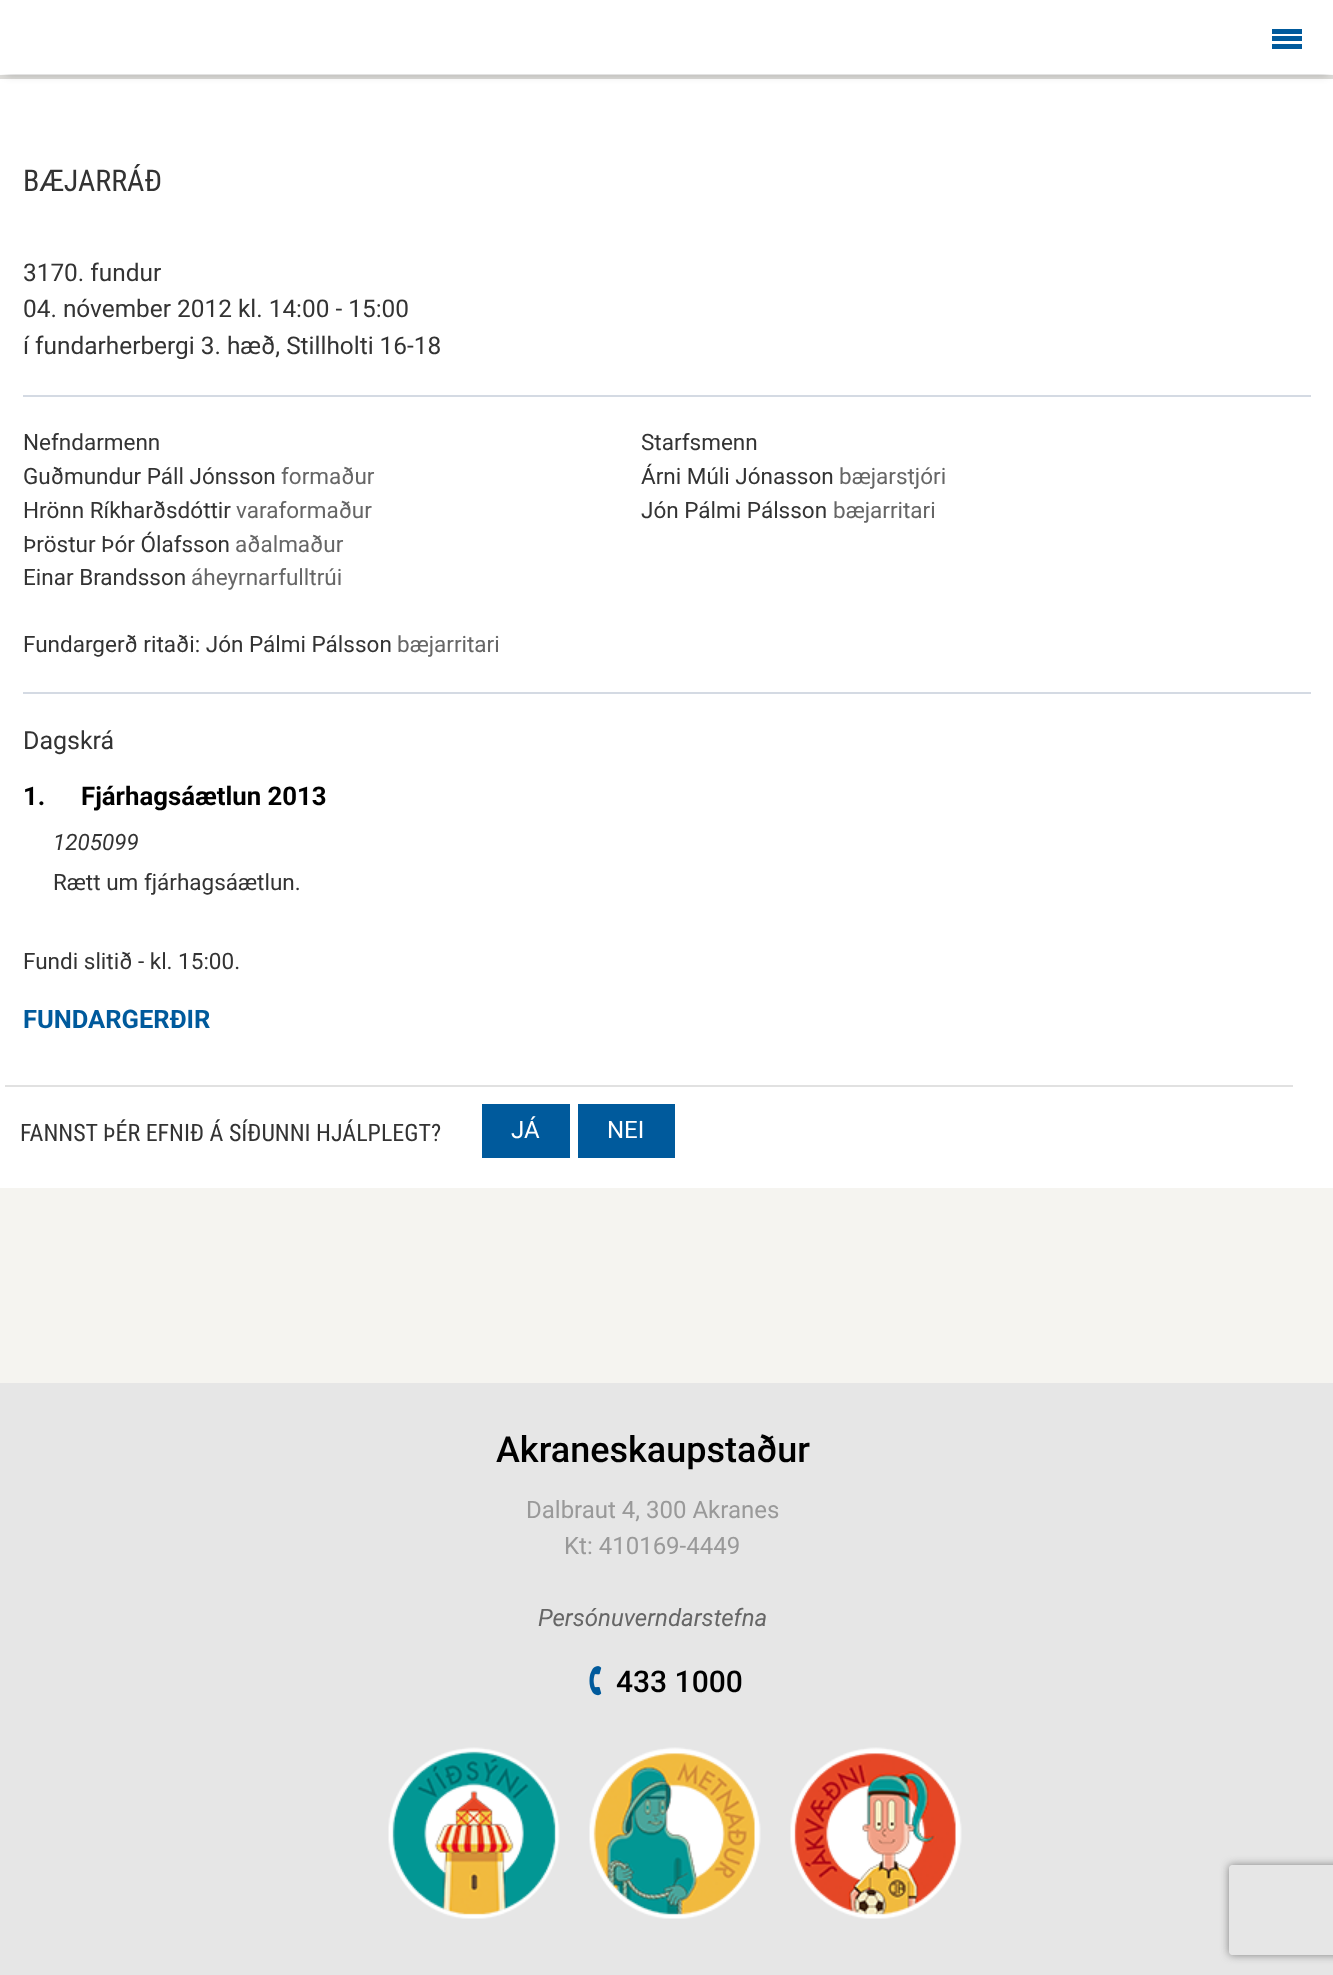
<svg xmlns="http://www.w3.org/2000/svg" width="1333" height="1975" viewBox="0 0 1333 1975">
  <style>
    .t1 { font: 30px Roboto Condensed; fill: #333; }
    .t2 { font: 24.4px Roboto; fill: #333; }
    .t3 { font: 22.5px Roboto; fill: #333; }
    .t4 { font: 22.5px Roboto; fill: #666; }
    .t5 { font: 25px Roboto; fill: #333; }
    .t6 { font: bold 25.75px Roboto; fill: #000; }
    .t7 { font: italic 22.5px Roboto; fill: #333; }
    .t8 { font: bold 25.5px Roboto; fill: #005a9c; }
    .t9 { font: 24px Roboto Condensed; fill: #333; }
    .t10 { font: 24px Roboto; fill: #fff; }
    .t11 { font: 500 36px Roboto; fill: #000; }
    .t12 { font: 24px Roboto; fill: #999; }
    .t13 { font: italic 24px Roboto; fill: #666; }
    .t14 { font: 500 30px Roboto; fill: #000; }
  </style>
  <defs>
    <clipPath id="clip1"><path d="M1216 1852H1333V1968H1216ZM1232 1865H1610C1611.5 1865 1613 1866.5 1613 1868V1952C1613 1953.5 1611.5 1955 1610 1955H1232C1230.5 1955 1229 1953.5 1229 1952V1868C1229 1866.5 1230.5 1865 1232 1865Z" clip-rule="evenodd"/></clipPath>
  </defs>
  <rect width="100%" height="100%" fill="#f5f4f0"/>
  <rect x="0" y="74" width="1333" height="1" fill="#fff"/>
  <rect x="0" y="75" width="1333" height="4" fill="#dcdbd8"/>
  <rect x="0" y="79" width="1333" height="1109" fill="#fff"/>
  <rect x="6" y="14" width="1322" height="61" fill="#00000033" filter="blur(4px)"/>
  <rect x="0" y="0" width="1333" height="74" fill="#fff"/>
  <rect x="1272" y="29" width="30" height="5" fill="#005a9c"/>
  <rect x="1272" y="36" width="30" height="5" fill="#005a9c"/>
  <rect x="1272" y="44" width="30" height="5" fill="#005a9c"/>
  <text x="23" y="191" class="t1">BÆJARRÁÐ</text>
  <text x="23" y="281" class="t2">3170. fundur</text>
  <text x="23" y="317" class="t2">04. nóvember 2012 kl. 14:00 - 15:00</text>
  <rect x="23" y="395" width="1288" height="2" fill="#d4dae3"/>
  <text x="23" y="354" class="t2">í fundarherbergi 3. hæð, Stillholti 16-18</text>
  <rect x="23" y="692" width="1288" height="2" fill="#d4dae3"/>
  <text x="23" y="450" class="t3">Nefndarmenn</text>
  <text x="23" y="484" class="t3">Guðmundur Páll Jónsson</text>
  <text x="281" y="484" class="t4">formaður</text>
  <text x="23" y="518" class="t3">Hrönn Ríkharðsdóttir</text>
  <text x="236" y="518" class="t4">varaformaður</text>
  <text x="23" y="552" class="t3">Þröstur Þór Ólafsson</text>
  <text x="235" y="552" class="t4">aðalmaður</text>
  <text x="23" y="585" class="t3">Einar Brandsson</text>
  <text x="191" y="585" class="t4">áheyrnarfulltrúi</text>
  <text x="641" y="450" class="t3">Starfsmenn</text>
  <text x="641" y="484" class="t3">Árni Múli Jónasson</text>
  <text x="839" y="484" class="t4">bæjarstjóri</text>
  <text x="641" y="518" class="t3">Jón Pálmi Pálsson</text>
  <text x="833" y="518" class="t4">bæjarritari</text>
  <text x="23" y="652" class="t3">Fundargerð ritaði: Jón Pálmi Pálsson</text>
  <text x="397" y="652" class="t4">bæjarritari</text>
  <text x="23" y="749" class="t5">Dagskrá</text>
  <text x="23" y="805" class="t6">1.</text>
  <text x="81" y="805" class="t6">Fjárhagsáætlun 2013</text>
  <text x="53" y="850" class="t7">1205099</text>
  <text x="53" y="890" class="t3">Rætt um fjárhagsáætlun.</text>
  <text x="23" y="969" class="t3">Fundi slitið - kl. 15:00.</text>
  <text x="23" y="1028" class="t8">FUNDARGERÐIR</text>
  <rect x="5" y="1085" width="1288" height="2" fill="#e1e1e1"/>
  <text x="20" y="1141" class="t9">FANNST ÞÉR EFNIÐ Á SÍÐUNNI HJÁLPLEGT?</text>
  <rect x="482" y="1104" width="88" height="54" fill="#005a9c"/>
  <text x="511" y="1138" class="t10">JÁ</text>
  <rect x="578" y="1104" width="97" height="54" fill="#005a9c"/>
  <text x="607" y="1138" class="t10">NEI</text>
  <rect x="0" y="1383" width="1333" height="592" fill="#e6e6e6"/>
  <text x="496" y="1462" class="t11">Akraneskaupstaður</text>
  <text x="526" y="1518" class="t12">Dalbraut 4, 300 Akranes</text>
  <text x="564" y="1554" class="t12">Kt: 410169-4449</text>
  <text x="538" y="1626" class="t13">Persónuverndarstefna</text>
  <image x="589" y="1666" width="13" height="30" href="images/1.png"/>
  <text x="616" y="1692" class="t14">433 1000</text>
  <image x="388" y="1747" width="172" height="172" href="images/2.png"/>
  <image x="589" y="1747" width="172" height="172" href="images/3.png"/>
  <image x="790" y="1747" width="172" height="172" href="images/4.png"/>
  <g clip-path="url(#clip1)">
    <rect x="1229" y="1865" width="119" height="90" rx="3" fill="#808080" filter="blur(4px)"/>
  </g>
</svg>
